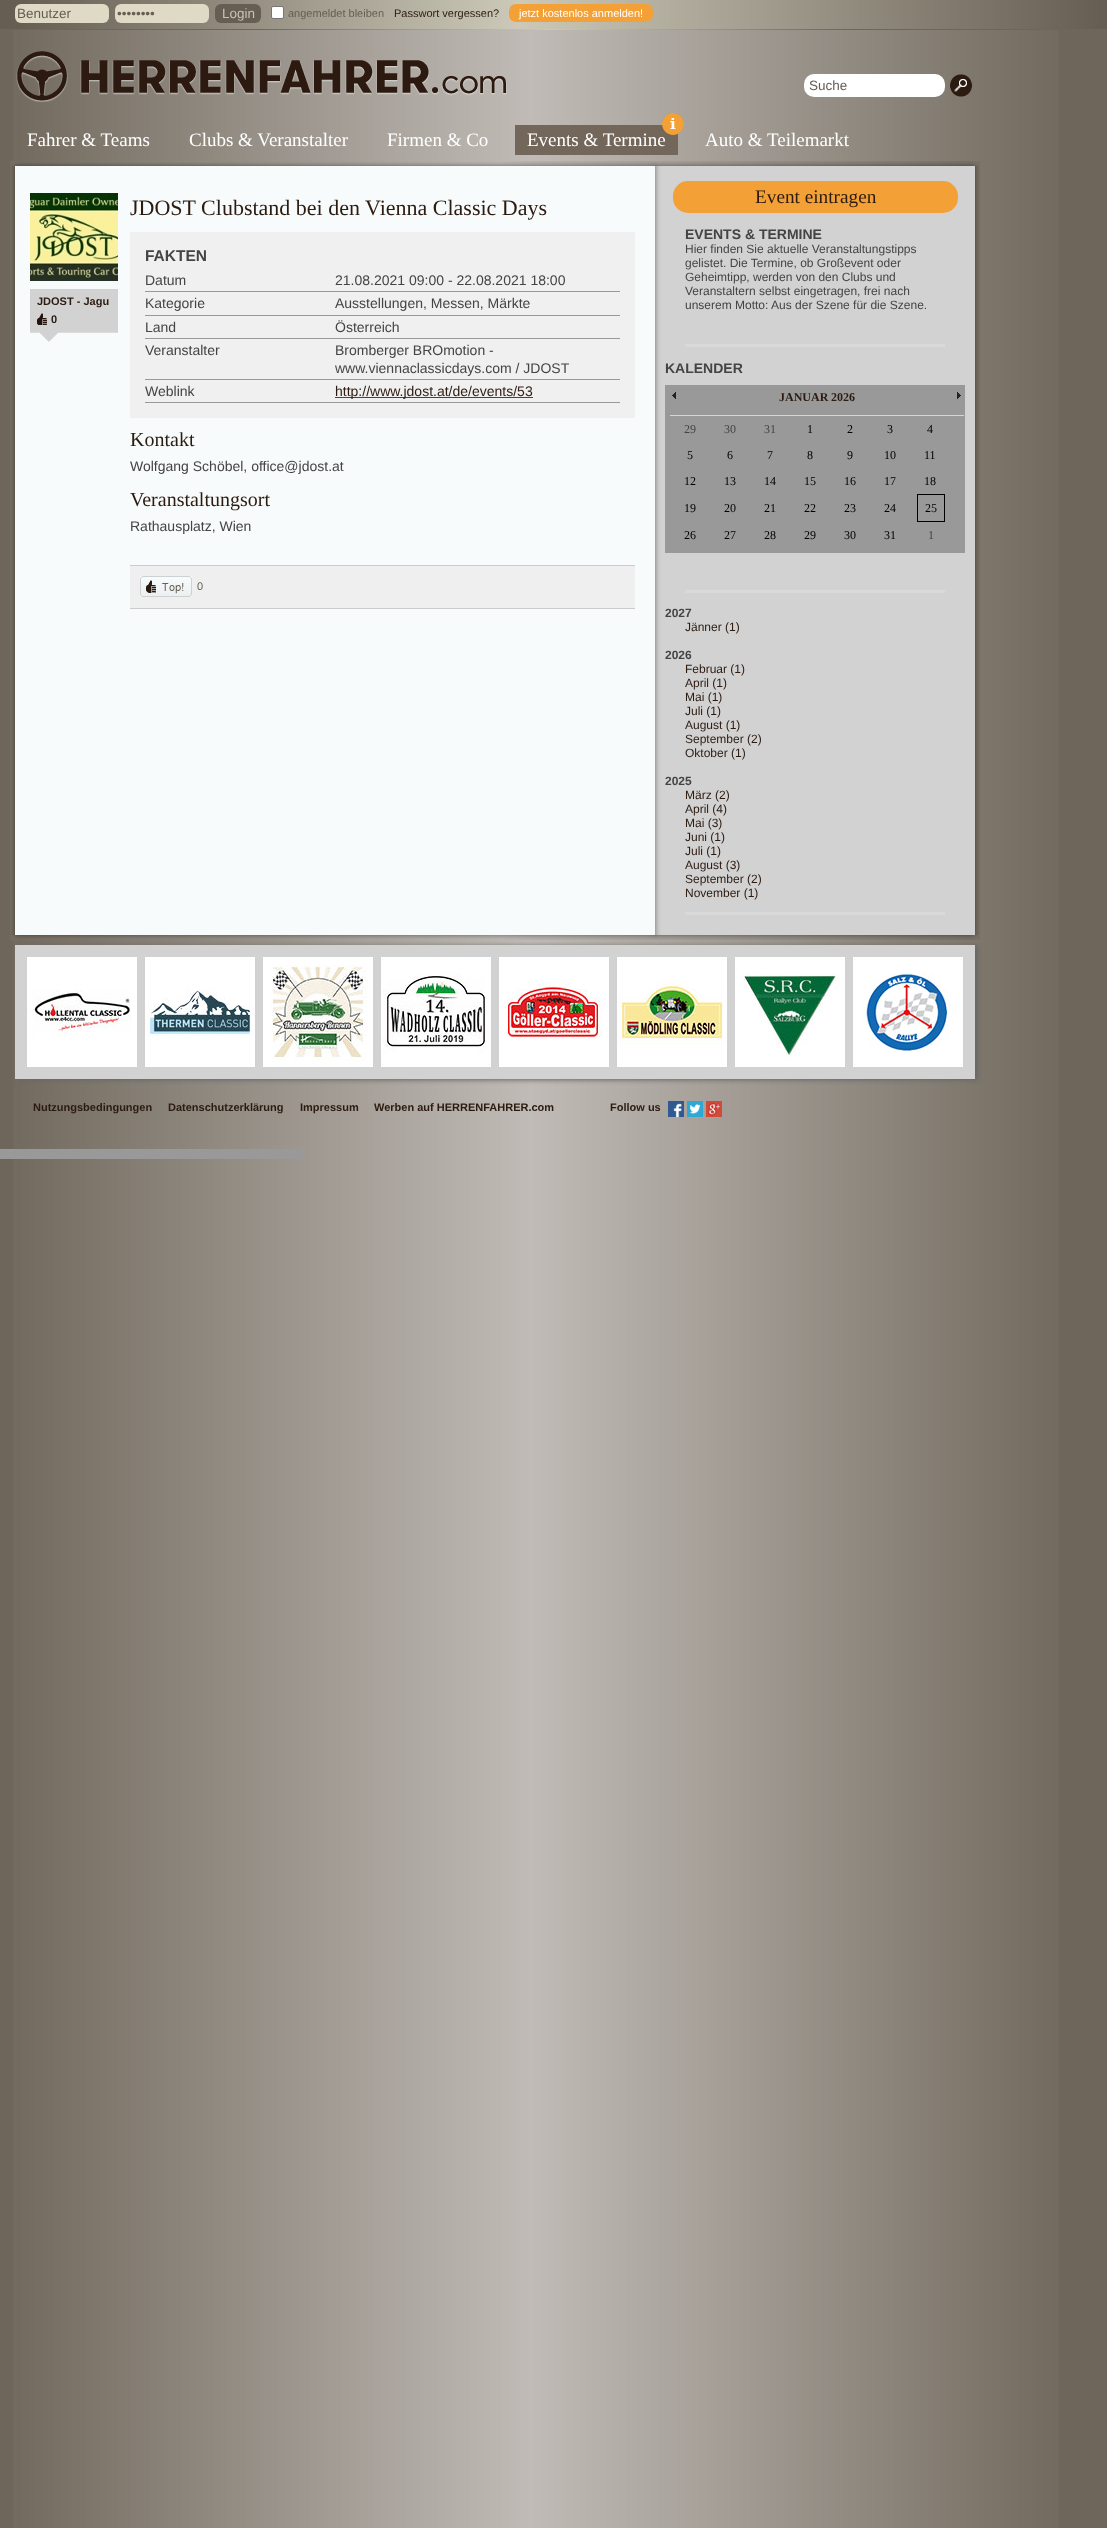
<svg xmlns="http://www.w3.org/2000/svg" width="1107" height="2528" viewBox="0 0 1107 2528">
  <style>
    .t1 { font: 13.5px Liberation Sans; fill: #665e53; }
    .t2 { font: 13.5px Liberation Sans; fill: #c6c2b2; }
    .t3 { font: 11px Liberation Sans; fill: #665e53; }
    .t4 { font: 11px Liberation Sans; fill: #2c1b11; }
    .t5 { font: 11px Liberation Sans; fill: #fff; }
    .t6 { font: 19px Liberation Serif; fill: #fff; }
    .t7 { font: bold 11px Liberation Sans; fill: #2c1b11; }
    .t8 { font: 22px Liberation Serif; fill: #2c1b11; }
    .t9 { font: bold 15.5px Liberation Sans; fill: #444; }
    .t10 { font: 14px Liberation Sans; fill: #444; }
    .t11 { font: 14px Liberation Sans; fill: #2c1b11; }
    .t12 { font: 20px Liberation Serif; fill: #2c1b11; }
    .t13 { font: 19.25px Liberation Serif; fill: #2c1b11; }
    .t14 { font: bold 14px Liberation Sans; fill: #444; }
    .t15 { font: 12px Liberation Sans; fill: #444; }
    .t16 { font: bold 12px Liberation Serif; fill: #2c1b11; }
    .t17 { font: 12px Liberation Serif; fill: #444; }
    .t18 { font: 12px Liberation Serif; fill: #000; }
    .t19 { font: bold 12px Liberation Sans; fill: #444; }
    .t20 { font: 12px Liberation Sans; fill: #2c1b11; }
  </style>
  <rect width="100%" height="100%" fill="#6e665a"/>
  <image x="13" y="30" width="1046" height="2498" href="images/1.png"/>
  <image x="0" y="0" width="1107" height="30" href="images/2.png"/>
  <rect x="15" y="4" width="94" height="19" rx="6" fill="#dedac6"/>
  <text x="17" y="18" class="t1">Benutzer</text>
  <rect x="115" y="4" width="94" height="19" rx="6" fill="#dedac6"/>
  <text x="117" y="18" class="t1">••••••••</text>
  <rect x="215" y="4" width="46" height="19" rx="6" fill="#665e53"/>
  <text x="222" y="18" class="t2">Login</text>
  <rect x="271.5" y="6.5" width="12" height="12" rx="1.5" fill="#fff" stroke="#767676"/>
  <text x="288" y="17" class="t3">angemeldet bleiben</text>
  <text x="394" y="17" class="t4">Passwort vergessen?</text>
  <rect x="509" y="4" width="144" height="18" rx="7" fill="#f3a036"/>
  <text x="519" y="17" class="t5">jetzt kostenlos anmelden!</text>
  <image x="16" y="51" width="491" height="51" href="images/3.png"/>
  <rect x="804" y="74" width="141" height="23" rx="10" fill="#fff"/>
  <text x="809" y="90" class="t1">Suche</text>
  <image x="950" y="74" width="22" height="23" href="images/4.png"/>
  <text x="27" y="146" class="t6">Fahrer &amp; Teams</text>
  <text x="189" y="146" class="t6">Clubs &amp; Veranstalter</text>
  <text x="387" y="146" class="t6">Firmen &amp; Co</text>
  <rect x="515" y="125" width="163" height="30" fill="#73665a"/>
  <text x="527" y="146" class="t6">Events &amp; Termine</text>
  <image x="662" y="113" width="22" height="22" href="images/5.png"/>
  <text x="705" y="146" class="t6">Auto &amp; Teilemarkt</text>
  <image x="10" y="161" width="970" height="779" href="images/6.png"/>
  <image x="11" y="161" width="968" height="5" href="images/7.png"/>
  <image x="30" y="193" width="88" height="88" href="images/8.png"/>
  <rect x="30" y="289" width="88" height="43" fill="#d2d2d2"/>
  <image x="30" y="332" width="88" height="10" href="images/9.png"/>
  <text x="37" y="305" class="t7">JDOST - Jagu</text>
  <image x="37" y="313" width="10" height="12" href="images/10.png"/>
  <text x="51" y="323" class="t7">0</text>
  <text x="130" y="215" class="t8">JDOST Clubstand bei den Vienna Classic Days</text>
  <rect x="130" y="232" width="505" height="186" fill="#f0f0f0"/>
  <text x="145" y="261" class="t9">FAKTEN</text>
  <rect x="145" y="291" width="475" height="1" fill="#999"/>
  <text x="145" y="285" class="t10">Datum</text>
  <text x="335" y="285" class="t10">21.08.2021 09:00 - 22.08.2021 18:00</text>
  <rect x="145" y="315" width="475" height="1" fill="#999"/>
  <text x="145" y="308" class="t10">Kategorie</text>
  <text x="335" y="308" class="t10">Ausstellungen, Messen, Märkte</text>
  <rect x="145" y="338" width="475" height="1" fill="#999"/>
  <text x="145" y="332" class="t10">Land</text>
  <text x="335" y="332" class="t10">Österreich</text>
  <rect x="145" y="379" width="475" height="1" fill="#999"/>
  <text x="145" y="355" class="t10">Veranstalter</text>
  <text x="335" y="355" class="t10">Bromberger BROmotion -</text>
  <text x="335" y="373" class="t10">www.viennaclassicdays.com / JDOST</text>
  <rect x="145" y="402" width="475" height="1" fill="#999"/>
  <text x="145" y="396" class="t10">Weblink</text>
  <rect x="335" y="397" width="198" height="1" fill="#444"/>
  <text x="335" y="396" class="t11">http://www.jdost.at/de/events/53</text>
  <text x="130" y="446" class="t12">Kontakt</text>
  <text x="130" y="471" class="t10">Wolfgang Schöbel, office@jdost.at</text>
  <text x="130" y="506" class="t12">Veranstaltungsort</text>
  <text x="130" y="531" class="t10">Rathausplatz, Wien</text>
  <rect x="130" y="566" width="505" height="42" fill="#efefef"/>
  <rect x="130" y="565" width="505" height="1" fill="#ccc"/>
  <rect x="130" y="608" width="505" height="1" fill="#ccc"/>
  <image x="140" y="576" width="52" height="21" href="images/11.png"/>
  <text x="197" y="590" class="t3">0</text>
  <rect x="673" y="181" width="285" height="32" rx="15" fill="#f3a036"/>
  <text x="755" y="203" class="t13">Event eintragen</text>
  <rect x="685" y="344" width="260" height="3" fill="#d9d9d9"/>
  <text x="685" y="239" class="t14">EVENTS &amp; TERMINE</text>
  <text x="685" y="253" class="t15">Hier finden Sie aktuelle Veranstaltungstipps</text>
  <text x="685" y="267" class="t15">gelistet. Die Termine, ob Großevent oder</text>
  <text x="685" y="281" class="t15">Geheimtipp, werden von den Clubs und</text>
  <text x="685" y="295" class="t15">Veranstaltern selbst eingetragen, frei nach</text>
  <text x="685" y="309" class="t15">unserem Motto: Aus der Szene für die Szene.</text>
  <rect x="685" y="590" width="260" height="3" fill="#d9d9d9"/>
  <text x="665" y="373" class="t14">KALENDER</text>
  <rect x="665" y="385" width="300" height="168" fill="#999"/>
  <rect x="670" y="415" width="294" height="1" fill="#d6d6d6"/>
  <image x="672" y="392" width="4" height="7" href="images/12.png"/>
  <text x="779" y="401" class="t16">JANUAR</text>
  <text x="831" y="401" class="t16">2026</text>
  <image x="957" y="392" width="4" height="7" href="images/13.png"/>
  <text x="684" y="433" class="t17">29</text>
  <text x="724" y="433" class="t17">30</text>
  <text x="764" y="433" class="t17">31</text>
  <text x="807" y="433" class="t18">1</text>
  <text x="847" y="433" class="t18">2</text>
  <text x="887" y="433" class="t18">3</text>
  <text x="927" y="433" class="t18">4</text>
  <text x="687" y="459" class="t18">5</text>
  <text x="727" y="459" class="t18">6</text>
  <text x="767" y="459" class="t18">7</text>
  <text x="807" y="459" class="t18">8</text>
  <text x="847" y="459" class="t18">9</text>
  <text x="884" y="459" class="t18">10</text>
  <text x="924" y="459" class="t18">11</text>
  <text x="684" y="485" class="t18">12</text>
  <text x="724" y="485" class="t18">13</text>
  <text x="764" y="485" class="t18">14</text>
  <text x="804" y="485" class="t18">15</text>
  <text x="844" y="485" class="t18">16</text>
  <text x="884" y="485" class="t18">17</text>
  <text x="924" y="485" class="t18">18</text>
  <text x="684" y="512" class="t18">19</text>
  <text x="724" y="512" class="t18">20</text>
  <text x="764" y="512" class="t18">21</text>
  <text x="804" y="512" class="t18">22</text>
  <text x="844" y="512" class="t18">23</text>
  <text x="884" y="512" class="t18">24</text>
  <rect x="917.5" y="494.5" width="27" height="27" fill="none" stroke="#000"/>
  <text x="925" y="512" class="t18">25</text>
  <text x="684" y="539" class="t18">26</text>
  <text x="724" y="539" class="t18">27</text>
  <text x="764" y="539" class="t18">28</text>
  <text x="804" y="539" class="t18">29</text>
  <text x="844" y="539" class="t18">30</text>
  <text x="884" y="539" class="t18">31</text>
  <text x="928" y="539" class="t17">1</text>
  <rect x="685" y="912" width="260" height="3" fill="#d9d9d9"/>
  <text x="665" y="617" class="t19">2027</text>
  <text x="685" y="631" class="t20">Jänner (1)</text>
  <text x="665" y="659" class="t19">2026</text>
  <text x="685" y="673" class="t20">Februar (1)</text>
  <text x="685" y="687" class="t20">April (1)</text>
  <text x="685" y="701" class="t20">Mai (1)</text>
  <text x="685" y="715" class="t20">Juli (1)</text>
  <text x="685" y="729" class="t20">August (1)</text>
  <text x="685" y="743" class="t20">September (2)</text>
  <text x="685" y="757" class="t20">Oktober (1)</text>
  <text x="665" y="785" class="t19">2025</text>
  <text x="685" y="799" class="t20">März (2)</text>
  <text x="685" y="813" class="t20">April (4)</text>
  <text x="685" y="827" class="t20">Mai (3)</text>
  <text x="685" y="841" class="t20">Juni (1)</text>
  <text x="685" y="855" class="t20">Juli (1)</text>
  <text x="685" y="869" class="t20">August (3)</text>
  <text x="685" y="883" class="t20">September (2)</text>
  <text x="685" y="897" class="t20">November (1)</text>
  <image x="11" y="935" width="968" height="5" href="images/14.png"/>
  <rect x="18" y="946" width="960" height="134" fill="#666" filter="blur(2.5px)"/>
  <rect x="15" y="945" width="960" height="134" fill="#d2d2d2"/>
  <rect x="27" y="957" width="110" height="110" fill="#fff"/>
  <image x="27" y="990" width="104" height="47" href="images/15.png"/>
  <rect x="145" y="957" width="110" height="110" fill="#fff"/>
  <image x="145" y="989" width="110" height="48" href="images/16.png"/>
  <rect x="263" y="957" width="110" height="110" fill="#fff"/>
  <image x="271" y="965" width="96" height="96" href="images/17.png"/>
  <rect x="381" y="957" width="110" height="110" fill="#fff"/>
  <image x="382" y="973" width="103" height="80" href="images/18.png"/>
  <rect x="499" y="957" width="110" height="110" fill="#fff"/>
  <image x="507" y="981" width="96" height="56" href="images/19.png"/>
  <rect x="617" y="957" width="110" height="110" fill="#fff"/>
  <image x="617" y="981" width="110" height="64" href="images/20.png"/>
  <rect x="735" y="957" width="110" height="110" fill="#fff"/>
  <image x="743" y="973" width="96" height="88" href="images/21.png"/>
  <rect x="853" y="957" width="110" height="110" fill="#fff"/>
  <image x="862" y="973" width="87" height="80" href="images/22.png"/>
  <text x="33" y="1111" class="t7">Nutzungsbedingungen</text>
  <text x="168" y="1111" class="t7">Datenschutzerklärung</text>
  <text x="300" y="1111" class="t7">Impressum</text>
  <text x="374" y="1111" class="t7">Werben auf HERRENFAHRER.com</text>
  <text x="610" y="1111" class="t7">Follow us</text>
  <image x="668" y="1101" width="16" height="16" href="images/23.png"/>
  <image x="687" y="1101" width="16" height="16" href="images/24.png"/>
  <image x="706" y="1101" width="16" height="16" href="images/25.png"/>
  <rect x="0" y="1149" width="304" height="10" fill="#999"/>
</svg>
